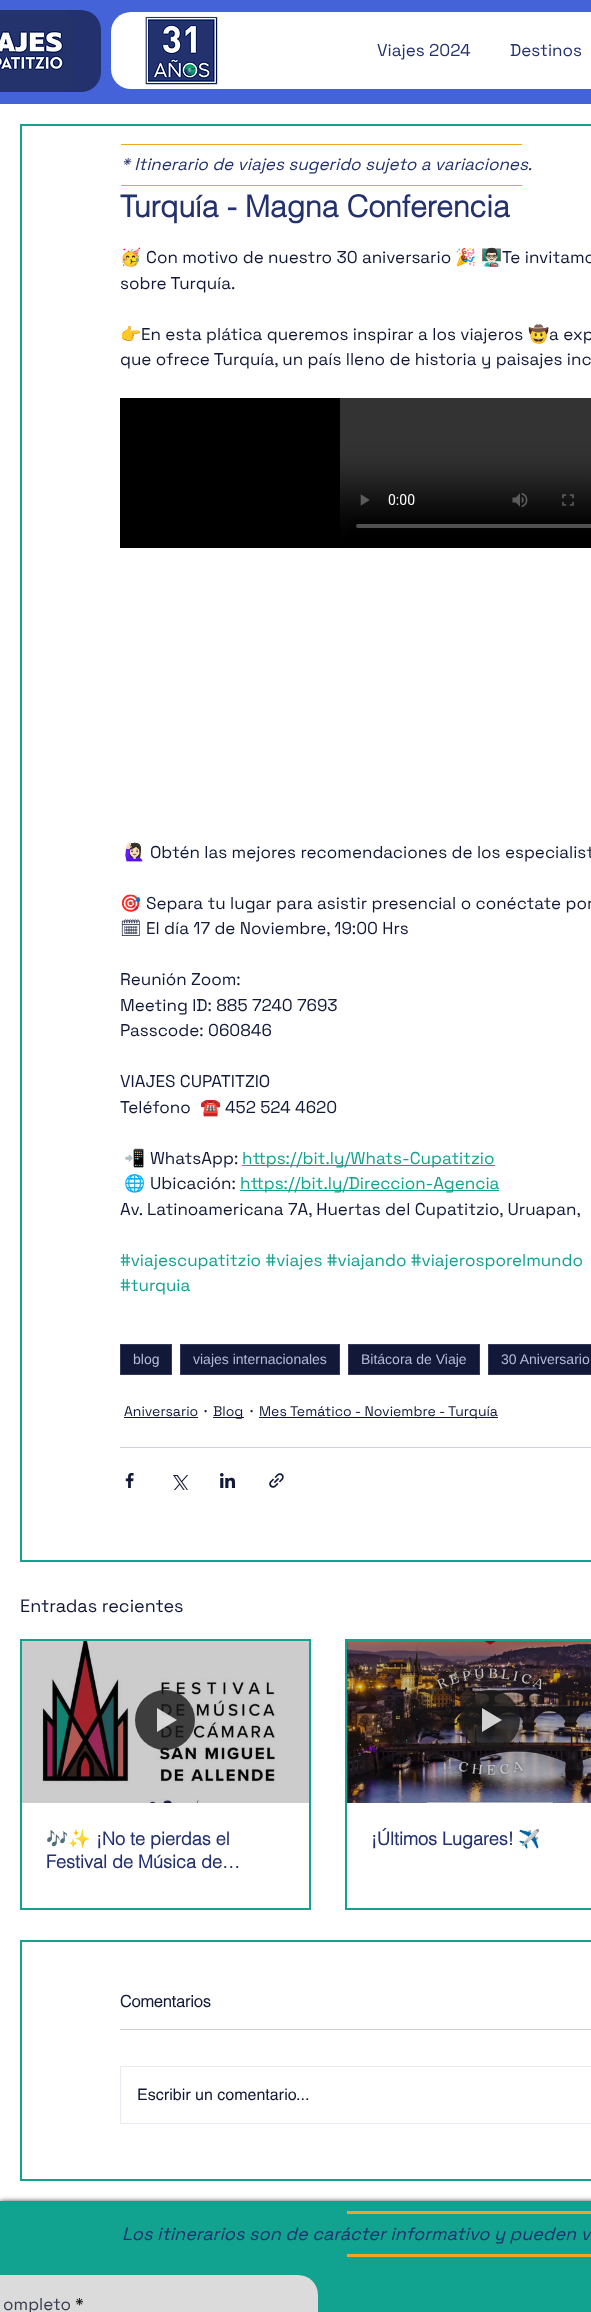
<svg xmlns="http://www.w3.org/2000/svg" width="591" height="2312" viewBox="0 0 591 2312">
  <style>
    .t1 { font: 17px Space Grotesk; fill: #23316e; }
    .t2 { font: italic 17px Space Grotesk; fill: #23316e; }
    .t3 { font: bold 30px helvetica; fill: #23316e; }
    .t4 { font: 17px Noto Color Emoji; fill: #121837; }
    .t5 { font: 17px Space Grotesk; fill: #121837; }
    .t6 { font: 17px Noto Emoji; fill: #121837; }
    .t7 { font: 17px Space Grotesk; fill: #12a390; }
    .t8 { font: 14px Liberation Sans; fill: #b5bcdb; }
    .t9 { font: 14px Space Grotesk; fill: #121837; }
    .t10 { font: 18px Space Grotesk; fill: #121837; }
    .t11 { font: bold 18px Noto Color Emoji; fill: #23316e; }
    .t12 { font: bold 18px helvetica; fill: #23316e; }
    .t13 { font: bold 16px helvetica; fill: #121837; }
    .t14 { font: 16px helvetica; fill: #121837; }
    .t15 { font: italic 18px Space Grotesk; fill: #23316e; }
    .t16 { font: 17px Space Grotesk; fill: #373b4d; }
    .t17 { font: 17px Space Grotesk; fill: #000; }
  </style>
  <rect width="100%" height="100%" fill="#fff"/>
  <rect x="22" y="1641" width="287" height="162" fill="#ccc"/>
  <rect x="0" y="0" width="591" height="104" fill="#4563d9"/>
  <rect x="-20" y="10" width="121" height="82" rx="20" fill="#23316e"/>
  <image x="0" y="10" width="75" height="82" href="images/1.png"/>
  <rect x="111" y="12" width="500" height="77" rx="20" fill="#fff"/>
  <image x="145" y="16" width="73" height="69" href="images/2.png"/>
  <text x="377" y="56" class="t1">Viajes 2024</text>
  <text x="510" y="56" class="t1">Destinos</text>
  <rect x="21" y="125" width="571" height="1436" fill="none" stroke="#12a390" stroke-width="2"/>
  <rect x="121" y="144" width="401" height="1" fill="#f3a522"/>
  <text x="121" y="170" class="t2">* Itinerario de viajes sugerido sujeto a variaciones.</text>
  <rect x="121" y="185" width="401" height="1" fill="#f3a522"/>
  <text x="120" y="217" class="t3">Turquía - Magna Conferencia</text>
  <text x="120" y="263" class="t4">🥳</text>
  <text x="146" y="263" class="t5">Con motivo de nuestro 30 aniversario</text>
  <text x="455" y="263" class="t4">🎉</text>
  <text x="481" y="263" class="t4">👨🏻‍🏫</text>
  <text x="502" y="263" class="t5">Te invitamo</text>
  <text x="120" y="289" class="t5">sobre Turquía.</text>
  <text x="120" y="340" class="t4">👉</text>
  <text x="141" y="340" class="t5">En esta plática queremos inspirar a los viajeros</text>
  <text x="528" y="340" class="t4">🤠</text>
  <text x="549" y="340" class="t5">a exp</text>
  <text x="120" y="365" class="t5">que ofrece Turquía, un país lleno de historia y paisajes inc</text>
  <image x="120" y="398" width="471" height="150" href="images/3.png"/>
  <text x="124" y="858" class="t4">🙋🏻‍♀️</text>
  <text x="150" y="858" class="t5">Obtén las mejores recomendaciones de los especialist</text>
  <text x="120" y="909" class="t4">🎯</text>
  <text x="146" y="909" class="t5">Separa tu lugar para asistir presencial o conéctate por</text>
  <text x="120" y="934" class="t6">🗓</text>
  <text x="146" y="934" class="t5">El día 17 de Noviembre, 19:00 Hrs</text>
  <text x="120" y="985" class="t5">Reunión Zoom:</text>
  <text x="120" y="1011" class="t5">Meeting ID: 885 7240 7693</text>
  <text x="120" y="1036" class="t5">Passcode: 060846</text>
  <text x="120" y="1087" class="t5">VIAJES CUPATITZIO</text>
  <text x="120" y="1113" class="t5">Teléfono</text>
  <text x="200" y="1113" class="t4">☎️</text>
  <text x="225" y="1113" class="t5">452 524 4620</text>
  <text x="124" y="1164" class="t4">📲</text>
  <text x="150" y="1164" class="t5">WhatsApp:</text>
  <rect x="242" y="1165" width="253" height="1" fill="#12a390"/>
  <text x="242" y="1164" class="t7">https://bit.ly/Whats-Cupatitzio</text>
  <text x="124" y="1189" class="t4">🌐</text>
  <text x="150" y="1189" class="t5">Ubicación:</text>
  <rect x="240" y="1190" width="259" height="1" fill="#12a390"/>
  <text x="240" y="1189" class="t7">https://bit.ly/Direccion-Agencia</text>
  <text x="120" y="1215" class="t5">Av. Latinoamericana 7A, Huertas del Cupatitzio, Uruapan,</text>
  <text x="120" y="1266" class="t7">#viajescupatitzio #viajes #viajando #viajerosporelmundo</text>
  <text x="120" y="1291" class="t7">#turquia</text>
  <rect x="120.5" y="1344.5" width="51" height="30" fill="#121837" stroke="#333958"/>
  <text x="133" y="1364" class="t8">blog</text>
  <rect x="180.5" y="1344.5" width="159" height="30" fill="#121837" stroke="#333958"/>
  <text x="193" y="1364" class="t8">viajes internacionales</text>
  <rect x="348.5" y="1344.5" width="131" height="30" fill="#121837" stroke="#333958"/>
  <text x="361" y="1364" class="t8">Bitácora de Viaje</text>
  <rect x="488.5" y="1344.5" width="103" height="30" fill="#121837" stroke="#333958"/>
  <text x="501" y="1364" class="t8">30 Aniversario</text>
  <text x="124" y="1416" class="t9">Aniversario</text>
  <rect x="124" y="1417" width="74" height="1" fill="#121837"/>
  <text x="204" y="1416" class="t5">·</text>
  <rect x="213" y="1417" width="31" height="1" fill="#121837"/>
  <text x="213" y="1416" class="t9">Blog</text>
  <text x="250" y="1416" class="t5">·</text>
  <rect x="259" y="1417" width="239" height="1" fill="#121837"/>
  <text x="259" y="1416" class="t9">Mes Temático - Noviembre - Turquía</text>
  <rect x="120" y="1447" width="471" height="1" fill="#d0d1d7"/>
  <image x="125" y="1473" width="9" height="15" href="images/4.png"/>
  <image x="173" y="1475" width="15" height="15" href="images/5.png"/>
  <image x="220" y="1473" width="15" height="15" href="images/6.png"/>
  <image x="269" y="1473" width="15" height="15" href="images/7.png"/>
  <text x="20" y="1612" class="t10">Entradas recientes</text>
  <rect x="21" y="1640" width="289" height="269" fill="none" stroke="#12a390" stroke-width="2"/>
  <image x="41" y="1641" width="235" height="162" href="images/8.png"/>
  <circle cx="165" cy="1720" r="30" fill="#1a1a1acc"/>
  <path d="M157 1708V1732L177 1720Z" fill="#ffffffcc"/>
  <text x="46" y="1845" class="t11">🎶✨</text>
  <text x="96" y="1845" class="t12">¡No te pierdas el</text>
  <text x="46" y="1868" class="t12">Festival de Música de…</text>
  <rect x="346" y="1640" width="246" height="269" fill="none" stroke="#12a390" stroke-width="2"/>
  <image x="347" y="1641" width="244" height="162" href="images/9.png"/>
  <circle cx="490" cy="1720" r="30" fill="#1a1a1acc"/>
  <path d="M482 1708V1732L502 1720Z" fill="#ffffffcc"/>
  <text x="371" y="1845" class="t12">¡Últimos Lugares!</text>
  <text x="518" y="1845" class="t11">✈️</text>
  <rect x="21" y="1941" width="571" height="239" fill="none" stroke="#12a390" stroke-width="2"/>
  <text x="120" y="2007" class="t13">Comentarios</text>
  <rect x="120" y="2029" width="471" height="1" fill="#d0d1d7"/>
  <rect x="120.5" y="2066.5" width="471" height="57" fill="none" stroke="#e9ebf4"/>
  <text x="137" y="2100" class="t14">Escribir un comentario...</text>
  <rect x="0" y="2201" width="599" height="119" fill="#000000b3" filter="blur(2.5px)"/>
  <rect x="0" y="2201" width="591" height="111" fill="#12a390"/>
  <rect x="347" y="2211" width="244" height="3" fill="#f3a522"/>
  <text x="122" y="2240" class="t15">Los itinerarios son de carácter informativo y pueden v</text>
  <rect x="347" y="2254" width="244" height="3" fill="#f3a522"/>
  <rect x="-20" y="2275" width="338" height="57" rx="20" fill="#dbdbdb"/>
  <text x="3" y="2310" class="t16">ompleto</text>
  <text x="75" y="2310" class="t17">*</text>
</svg>
